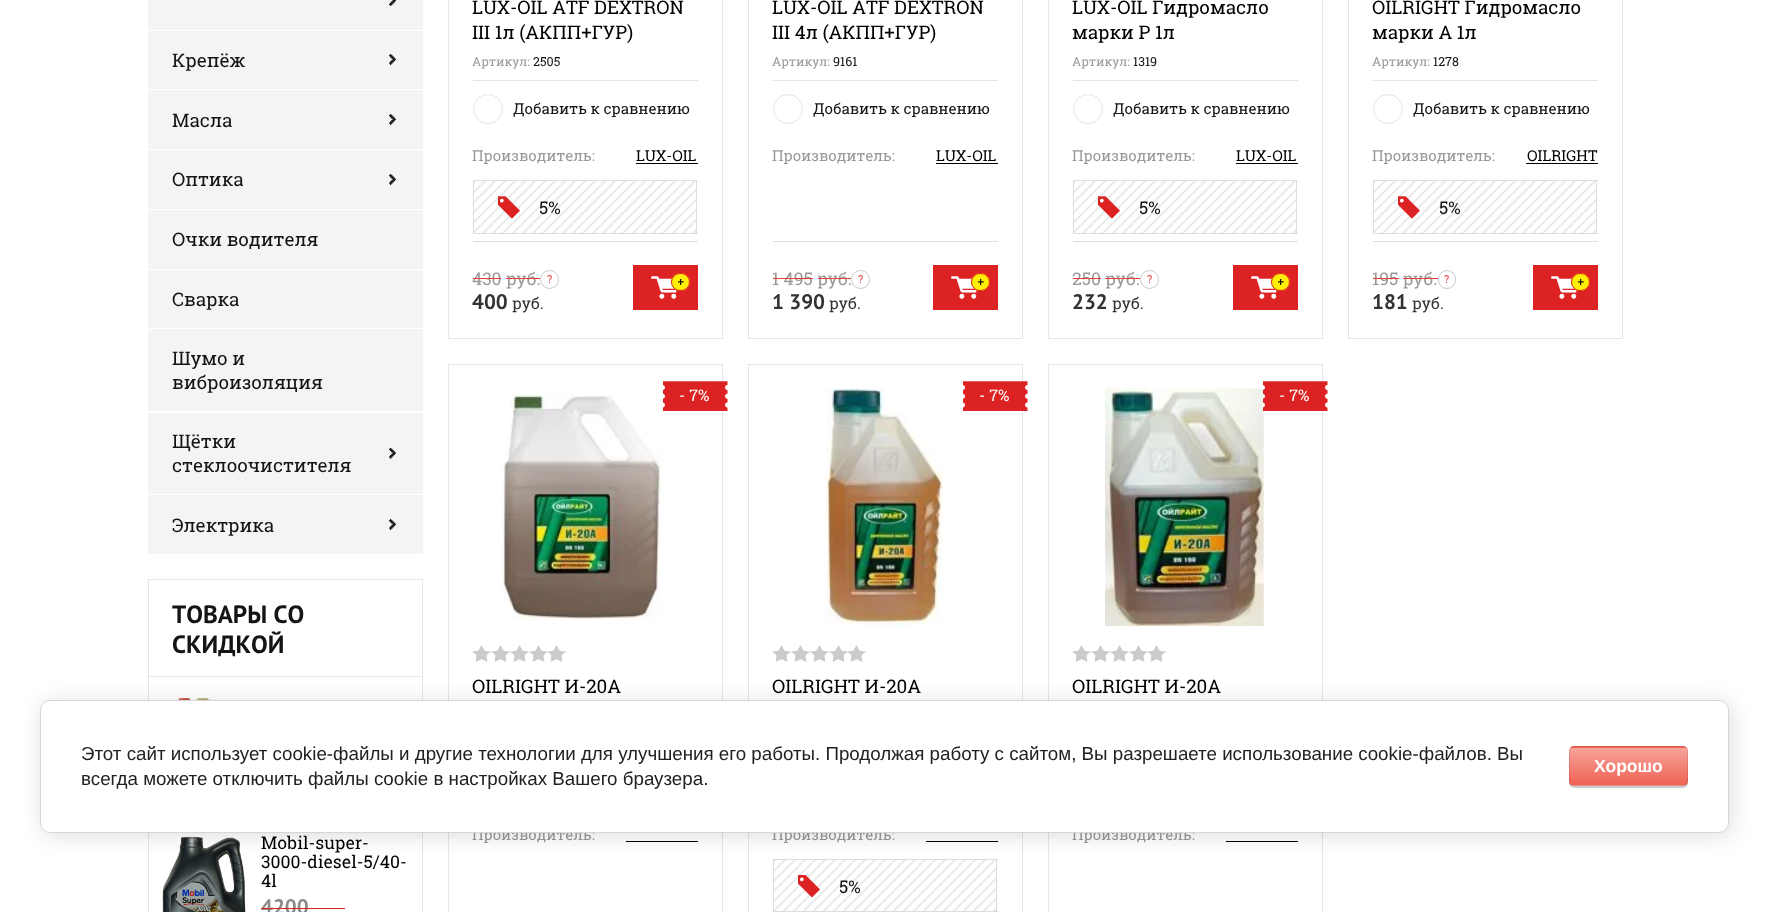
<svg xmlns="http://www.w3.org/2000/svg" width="1768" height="912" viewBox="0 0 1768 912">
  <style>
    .t1 { font: 18.75px Roboto Slab; fill: #141414; }
    .t2 { font: bold 25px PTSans; fill: #141414; }
    .t3 { font: 17.5px Roboto Slab; fill: #000; }
    .t4 { font: bold 21px PTSans; fill: #8a8a8a; }
    .t5 { font: 18.75px Roboto Slab; fill: #000; }
    .t6 { font: 12.5px Roboto Slab; fill: #999; }
    .t7 { font: 12.5px Roboto Slab; fill: #141414; }
    .t8 { font: 15px Roboto Slab; fill: #141414; }
    .t9 { font: 15px Roboto Slab; fill: #999; }
    .t10 { font: 15px Roboto Slab; fill: #000; }
    .t11 { font: 17.5px Roboto Slab; fill: #141414; }
    .t12 { font: 17.5px Roboto Slab; fill: #999; }
    .t13 { font: 11px Roboto Slab; fill: #eb3c3c; }
    .t14 { font: bold 21px PTSans; fill: #333; }
    .t15 { font: 16px Roboto Slab; fill: #333; }
    .t16 { font: 16px Roboto Slab; fill: #fff; }
    .t17 { font: 18.75px Liberation Sans; fill: #212121; }
    .t18 { font: bold 17.5px Liberation Sans; fill: #fff; }
  </style>
  <defs>
    <clipPath id="clip1"><rect x="1569" y="746" width="119" height="40" rx="5"/></clipPath>
    <linearGradient id="g1" gradientUnits="userSpaceOnUse" x1="1628" y1="710" x2="1628" y2="748"><stop offset="0" stop-color="#f6a39a"/><stop offset="1" stop-color="#f06354"/></linearGradient>
    <linearGradient id="g2" gradientUnits="userSpaceOnUse" x1="1628" y1="748" x2="1628" y2="785"><stop offset="0" stop-color="#f6a39a"/><stop offset="1" stop-color="#f06354"/></linearGradient>
    <linearGradient id="g3" gradientUnits="userSpaceOnUse" x1="1628" y1="785" x2="1628" y2="823"><stop offset="0" stop-color="#f6a39a"/><stop offset="1" stop-color="#f06354"/></linearGradient>
  </defs>
  <rect width="100%" height="100%" fill="#fff"/>
  <rect x="148" y="0" width="275" height="30" fill="#f4f4f4"/>
  <image x="389" y="0" width="7" height="6" href="images/1.png"/>
  <rect x="148" y="31" width="275" height="58" fill="#f4f4f4"/>
  <text x="172" y="67" class="t1">Крепёж</text>
  <image x="389" y="54" width="7" height="11" href="images/2.png"/>
  <rect x="148" y="90" width="275" height="59" fill="#f4f4f4"/>
  <text x="172" y="127" class="t1">Масла</text>
  <image x="389" y="114" width="7" height="11" href="images/2.png"/>
  <rect x="148" y="150" width="275" height="59" fill="#f4f4f4"/>
  <text x="172" y="186" class="t1">Оптика</text>
  <image x="389" y="174" width="7" height="11" href="images/2.png"/>
  <rect x="148" y="210" width="275" height="59" fill="#f4f4f4"/>
  <text x="172" y="246" class="t1">Очки водителя</text>
  <rect x="148" y="270" width="275" height="58" fill="#f4f4f4"/>
  <text x="172" y="306" class="t1">Сварка</text>
  <rect x="148" y="329" width="275" height="82" fill="#f4f4f4"/>
  <text x="172" y="365" class="t1">Шумо и</text>
  <text x="172" y="389" class="t1">виброизоляция</text>
  <rect x="148" y="413" width="275" height="81" fill="#f4f4f4"/>
  <text x="172" y="448" class="t1">Щётки</text>
  <image x="389" y="448" width="7" height="11" href="images/3.png"/>
  <text x="172" y="472" class="t1">стеклоочистителя</text>
  <rect x="148" y="495" width="275" height="59" fill="#f4f4f4"/>
  <text x="172" y="532" class="t1">Электрика</text>
  <image x="389" y="519" width="7" height="11" href="images/2.png"/>
  <rect x="148.5" y="579.5" width="274" height="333" fill="none" stroke="#e5e5e5"/>
  <rect x="149" y="676" width="272" height="1" fill="#e5e5e5"/>
  <text x="172" y="623" class="t2">ТОВАРЫ СО</text>
  <text x="172" y="653" class="t2">СКИДКОЙ</text>
  <image x="171" y="698" width="70" height="2" href="images/4.png"/>
  <image x="162" y="836" width="84" height="76" href="images/5.png"/>
  <text x="261" y="849" class="t3">Mobil-super-</text>
  <text x="261" y="868" class="t3">3000-diesel-5/40-</text>
  <text x="261" y="887" class="t3">4l</text>
  <text x="261" y="914" class="t4">4200</text>
  <rect x="261" y="908" width="84" height="1" fill="#dc2222"/>
  <rect x="448.5" y="-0.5" width="274" height="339" fill="none" stroke="#e5e5e5"/>
  <text x="472" y="14" class="t5">LUX-OIL ATF DEXTRON</text>
  <text x="472" y="39" class="t5">III 1л (АКПП+ГУР)</text>
  <text x="472" y="66" class="t6">Артикул:</text>
  <text x="533" y="66" class="t7">2505</text>
  <rect x="473" y="80" width="225" height="1" fill="#e5e5e5"/>
  <circle cx="488" cy="109" r="14.5" fill="none" stroke="#e5e5e5"/>
  <text x="513" y="114" class="t8">Добавить к сравнению</text>
  <text x="472" y="161" class="t9">Производитель:</text>
  <text x="636" y="161" class="t10">LUX-OIL</text>
  <rect x="636" y="163" width="62" height="1" fill="#000"/>
  <image x="472" y="180" width="226" height="54" href="images/6.png"/>
  <rect x="473" y="180" width="225" height="1" fill="#dedede"/>
  <rect x="696" y="180" width="1" height="54" fill="#ddd"/>
  <rect x="473" y="233" width="225" height="1" fill="#ddd"/>
  <rect x="473" y="180" width="1" height="54" fill="#ddd"/>
  <image x="498" y="196" width="22" height="23" href="images/7.png"/>
  <text x="539" y="214" class="t11">5%</text>
  <rect x="473" y="241" width="225" height="1" fill="#dedede"/>
  <text x="472" y="285" class="t12">430 руб.</text>
  <rect x="473" y="278" width="28" height="1" fill="#eb3c3c"/>
  <rect x="506" y="278" width="34" height="1" fill="#eb3c3c"/>
  <circle cx="549.5" cy="279.5" r="9" fill="none" stroke="#cbcbcb"/>
  <text x="547" y="283" class="t13">?</text>
  <text x="472" y="309" class="t14">400</text>
  <text x="512" y="309" class="t15">руб.</text>
  <rect x="633" y="265" width="65" height="45" fill="#dc2222"/>
  <image x="651" y="276" width="26" height="23" href="images/8.png"/>
  <rect x="671" y="273" width="19" height="18" rx="9" fill="#fff003"/>
  <image x="678" y="279" width="6" height="6" href="images/9.png"/>
  <rect x="671.5" y="273.5" width="18" height="17" rx="8.5" fill="none" stroke="#dc2222"/>
  <rect x="748.5" y="-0.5" width="274" height="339" fill="none" stroke="#e5e5e5"/>
  <text x="772" y="14" class="t5">LUX-OIL ATF DEXTRON</text>
  <text x="772" y="39" class="t5">III 4л (АКПП+ГУР)</text>
  <text x="772" y="66" class="t6">Артикул:</text>
  <text x="833" y="66" class="t7">9161</text>
  <rect x="773" y="80" width="225" height="1" fill="#e5e5e5"/>
  <circle cx="788" cy="109" r="14.5" fill="none" stroke="#e5e5e5"/>
  <text x="813" y="114" class="t8">Добавить к сравнению</text>
  <text x="772" y="161" class="t9">Производитель:</text>
  <text x="936" y="161" class="t10">LUX-OIL</text>
  <rect x="936" y="163" width="62" height="1" fill="#000"/>
  <rect x="773" y="241" width="225" height="1" fill="#dedede"/>
  <text x="772" y="285" class="t12">1 495 руб.</text>
  <rect x="773" y="278" width="40" height="1" fill="#eb3c3c"/>
  <rect x="818" y="278" width="33" height="1" fill="#eb3c3c"/>
  <circle cx="860.5" cy="279.5" r="9" fill="none" stroke="#cbcbcb"/>
  <text x="858" y="283" class="t13">?</text>
  <text x="772" y="309" class="t14">1 390</text>
  <text x="829" y="309" class="t15">руб.</text>
  <rect x="933" y="265" width="65" height="45" fill="#dc2222"/>
  <image x="951" y="276" width="26" height="23" href="images/8.png"/>
  <rect x="971" y="273" width="19" height="18" rx="9" fill="#fff003"/>
  <image x="978" y="279" width="6" height="6" href="images/9.png"/>
  <rect x="971.5" y="273.5" width="18" height="17" rx="8.5" fill="none" stroke="#dc2222"/>
  <rect x="1048.5" y="-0.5" width="274" height="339" fill="none" stroke="#e5e5e5"/>
  <text x="1072" y="14" class="t5">LUX-OIL Гидромасло</text>
  <text x="1072" y="39" class="t5">марки Р 1л</text>
  <text x="1072" y="66" class="t6">Артикул:</text>
  <text x="1133" y="66" class="t7">1319</text>
  <rect x="1073" y="80" width="225" height="1" fill="#e5e5e5"/>
  <circle cx="1088" cy="109" r="14.5" fill="none" stroke="#e5e5e5"/>
  <text x="1113" y="114" class="t8">Добавить к сравнению</text>
  <text x="1072" y="161" class="t9">Производитель:</text>
  <text x="1236" y="161" class="t10">LUX-OIL</text>
  <rect x="1236" y="163" width="62" height="1" fill="#000"/>
  <image x="1072" y="180" width="226" height="54" href="images/10.png"/>
  <rect x="1073" y="180" width="225" height="1" fill="#dedede"/>
  <rect x="1296" y="180" width="1" height="54" fill="#ddd"/>
  <rect x="1073" y="233" width="225" height="1" fill="#ddd"/>
  <rect x="1073" y="180" width="1" height="54" fill="#ddd"/>
  <image x="1098" y="196" width="22" height="23" href="images/11.png"/>
  <text x="1139" y="214" class="t11">5%</text>
  <rect x="1073" y="241" width="225" height="1" fill="#dedede"/>
  <text x="1072" y="285" class="t12">250 руб.</text>
  <rect x="1073" y="278" width="28" height="1" fill="#eb3c3c"/>
  <rect x="1105" y="278" width="35" height="1" fill="#eb3c3c"/>
  <circle cx="1149.5" cy="279.5" r="9" fill="none" stroke="#cbcbcb"/>
  <text x="1147" y="283" class="t13">?</text>
  <text x="1072" y="309" class="t14">232</text>
  <text x="1112" y="309" class="t15">руб.</text>
  <rect x="1233" y="265" width="65" height="45" fill="#dc2222"/>
  <image x="1251" y="276" width="26" height="23" href="images/8.png"/>
  <rect x="1271" y="273" width="19" height="18" rx="9" fill="#fff003"/>
  <image x="1278" y="279" width="6" height="6" href="images/9.png"/>
  <rect x="1271.5" y="273.5" width="18" height="17" rx="8.5" fill="none" stroke="#dc2222"/>
  <rect x="1348.5" y="-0.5" width="274" height="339" fill="none" stroke="#e5e5e5"/>
  <text x="1372" y="14" class="t5">OILRIGHT Гидромасло</text>
  <text x="1372" y="39" class="t5">марки А 1л</text>
  <text x="1372" y="66" class="t6">Артикул:</text>
  <text x="1433" y="66" class="t7">1278</text>
  <rect x="1373" y="80" width="225" height="1" fill="#e5e5e5"/>
  <circle cx="1388" cy="109" r="14.5" fill="none" stroke="#e5e5e5"/>
  <text x="1413" y="114" class="t8">Добавить к сравнению</text>
  <text x="1372" y="161" class="t9">Производитель:</text>
  <text x="1527" y="161" class="t10">OILRIGHT</text>
  <rect x="1526" y="163" width="72" height="1" fill="#000"/>
  <image x="1372" y="180" width="226" height="54" href="images/12.png"/>
  <rect x="1373" y="180" width="225" height="1" fill="#dedede"/>
  <rect x="1596" y="180" width="1" height="54" fill="#ddd"/>
  <rect x="1373" y="233" width="225" height="1" fill="#ddd"/>
  <rect x="1373" y="180" width="1" height="54" fill="#ddd"/>
  <image x="1398" y="196" width="22" height="23" href="images/7.png"/>
  <text x="1439" y="214" class="t11">5%</text>
  <rect x="1373" y="241" width="225" height="1" fill="#dedede"/>
  <text x="1372" y="285" class="t12">195 руб.</text>
  <rect x="1373" y="278" width="26" height="1" fill="#eb3c3c"/>
  <rect x="1403" y="278" width="35" height="1" fill="#eb3c3c"/>
  <rect x="1438.5" y="270.5" width="17" height="18" rx="8.5" fill="none" stroke="#cbcbcb"/>
  <text x="1444" y="283" class="t13">?</text>
  <text x="1372" y="309" class="t14">181</text>
  <text x="1412" y="309" class="t15">руб.</text>
  <rect x="1533" y="265" width="65" height="45" fill="#dc2222"/>
  <image x="1551" y="276" width="26" height="23" href="images/8.png"/>
  <rect x="1571" y="273" width="19" height="18" rx="9" fill="#fff003"/>
  <image x="1578" y="279" width="6" height="6" href="images/9.png"/>
  <rect x="1571.5" y="273.5" width="18" height="17" rx="8.5" fill="none" stroke="#dc2222"/>
  <rect x="448.5" y="364.5" width="274" height="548" fill="none" stroke="#e5e5e5"/>
  <image x="501" y="394" width="162" height="226" href="images/13.png"/>
  <image x="663" y="381" width="65" height="30" href="images/14.png"/>
  <text x="679" y="401" class="t16">- 7%</text>
  <image x="472" y="644" width="95" height="19" href="images/15.png"/>
  <text x="472" y="693" class="t5">OILRIGHT И-20А</text>
  <text x="472" y="840" class="t9">Производитель:</text>
  <rect x="626" y="841" width="72" height="1" fill="#000"/>
  <rect x="748.5" y="364.5" width="274" height="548" fill="none" stroke="#e5e5e5"/>
  <image x="826" y="388" width="117" height="238" href="images/16.png"/>
  <image x="963" y="381" width="65" height="30" href="images/14.png"/>
  <text x="979" y="401" class="t16">- 7%</text>
  <image x="772" y="644" width="95" height="19" href="images/15.png"/>
  <text x="772" y="693" class="t5">OILRIGHT И-20А</text>
  <text x="772" y="840" class="t9">Производитель:</text>
  <rect x="926" y="841" width="72" height="1" fill="#000"/>
  <image x="772" y="858" width="226" height="54" href="images/17.png"/>
  <rect x="773" y="859" width="225" height="1" fill="#dedede"/>
  <rect x="996" y="859" width="1" height="53" fill="#ddd"/>
  <rect x="773" y="911" width="225" height="1" fill="#ddd"/>
  <rect x="773" y="859" width="1" height="53" fill="#ddd"/>
  <image x="798" y="875" width="22" height="23" href="images/18.png"/>
  <text x="839" y="893" class="t11">5%</text>
  <rect x="1048.5" y="364.5" width="274" height="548" fill="none" stroke="#e5e5e5"/>
  <image x="1105" y="388" width="159" height="238" href="images/19.png"/>
  <image x="1263" y="381" width="65" height="30" href="images/20.png"/>
  <text x="1279" y="401" class="t16">- 7%</text>
  <image x="1072" y="644" width="95" height="19" href="images/21.png"/>
  <text x="1072" y="693" class="t5">OILRIGHT И-20А</text>
  <text x="1072" y="840" class="t9">Производитель:</text>
  <rect x="1226" y="841" width="72" height="1" fill="#000"/>
  <rect x="43" y="703" width="1688" height="132" rx="10" fill="#00000024" filter="blur(11px)"/>
  <rect x="40.5" y="700.5" width="1688" height="132" rx="9.5" fill="#fff" stroke="#d6d6d6"/>
  <text x="81" y="760" class="t17">Этот сайт использует cookie-файлы и другие технологии для улучшения его работы. Продолжая работу с сайтом, Вы разрешаете использование cookie-файлов. Вы</text>
  <text x="81" y="785" class="t17">всегда можете отключить файлы cookie в настройках Вашего браузера.</text>
  <rect x="1569" y="748" width="119" height="40" rx="5" fill="#00000033" filter="blur(0.5px)"/>
  <g clip-path="url(#clip1)">
    <rect x="1569" y="746" width="119" height="2" fill="url(#g1)"/>
    <rect x="1569" y="748" width="119" height="37" fill="url(#g2)"/>
    <rect x="1569" y="785" width="119" height="1" fill="url(#g3)"/>
  </g>
  <rect x="1569.5" y="746.5" width="118" height="39" rx="4.5" fill="none" stroke="#0000001a"/>
  <text x="1594" y="772" class="t18">Хорошо</text>
</svg>
